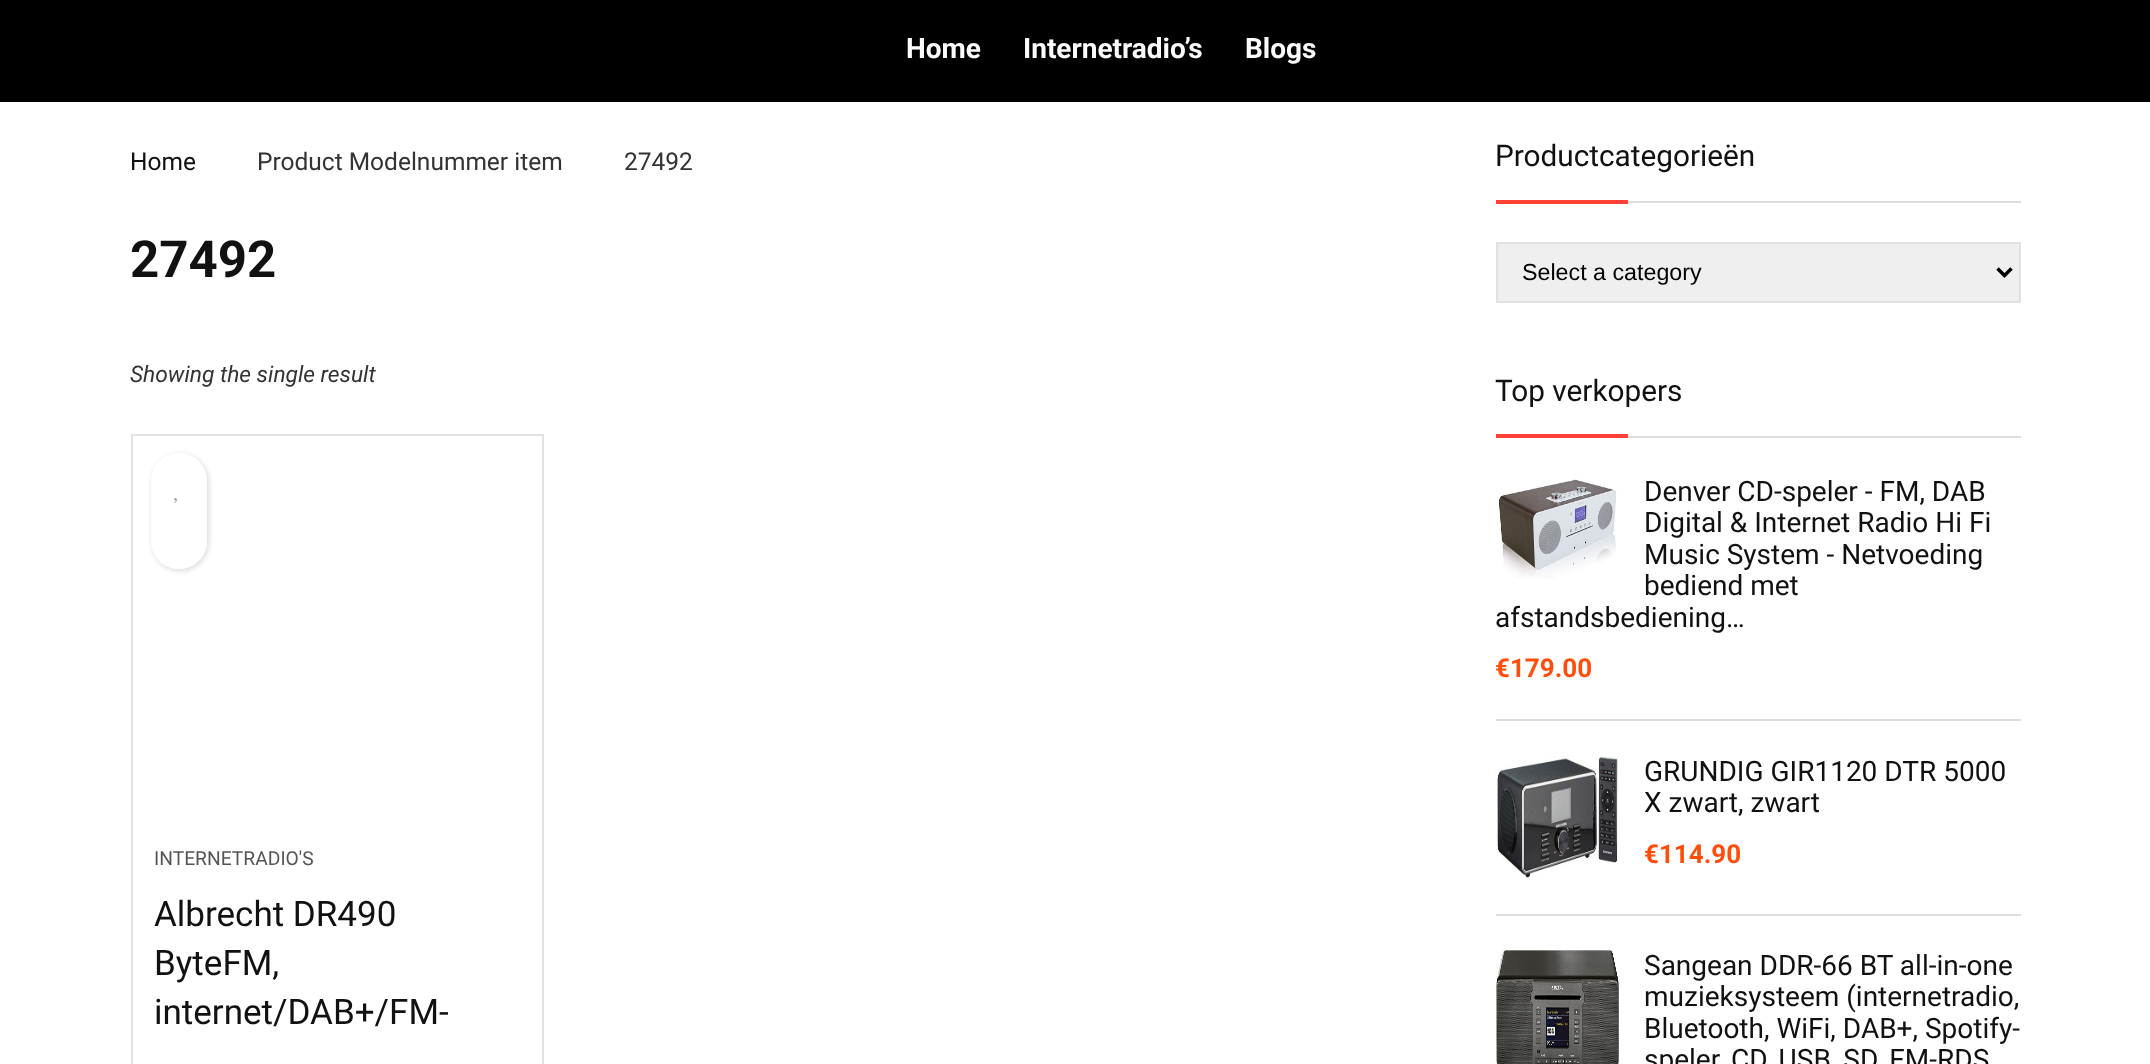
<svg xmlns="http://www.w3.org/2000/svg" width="2150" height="1064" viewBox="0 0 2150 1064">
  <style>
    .t1 { font: bold 28px Roboto; fill: #fbfbfb; }
    .t2 { font: 24.5px Roboto; fill: #111; }
    .t3 { font: 24.5px Roboto; fill: #333; }
    .t4 { font: bold 51px Roboto; fill: #111; }
    .t5 { font: italic 22.75px Roboto; fill: #333; }
    .t6 { font: 19.25px Roboto; fill: #555; }
    .t7 { font: 35px Roboto; fill: #111; }
    .t8 { font: 29.75px Roboto; fill: #111; }
    .t9 { font: 23.25px Liberation Sans; fill: #000; }
    .t10 { font: 28px Roboto; fill: #111; }
    .t11 { font: bold 26px Roboto; fill: #ff4e0c; }
  </style>
  <defs>
    <clipPath id="clip1"><path d="M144 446H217V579H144ZM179 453C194.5 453 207 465.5 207 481V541C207 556.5 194.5 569 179 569C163.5 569 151 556.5 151 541V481C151 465.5 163.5 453 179 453Z" clip-rule="evenodd"/></clipPath>
  </defs>
  <rect width="100%" height="100%" fill="#fff"/>
  <rect x="0" y="0" width="2150" height="102" fill="#000"/>
  <text x="906" y="58" class="t1">Home</text>
  <text x="1023" y="58" class="t1">Internetradio’s</text>
  <text x="1245" y="58" class="t1">Blogs</text>
  <text x="130" y="170" class="t2">Home</text>
  <text x="257" y="170" class="t3">Product Modelnummer item</text>
  <text x="624" y="170" class="t3">27492</text>
  <text x="130" y="277" class="t4">27492</text>
  <text x="130" y="382" class="t5">Showing the single result</text>
  <rect x="132" y="435" width="411" height="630" fill="none" stroke="#e2e2e2" stroke-width="2"/>
  <g clip-path="url(#clip1)">
    <rect x="151" y="453" width="59" height="119" rx="29.5" fill="#0000001a" filter="blur(2px)"/>
  </g>
  <rect x="151" y="453" width="56" height="116" rx="28" fill="#ffffffc7"/>
  <image x="173" y="498" width="4" height="5" href="images/1.png"/>
  <text x="154" y="865" class="t6">INTERNETRADIO'S</text>
  <text x="154" y="926" class="t7">Albrecht DR490</text>
  <text x="154" y="975" class="t7">ByteFM,</text>
  <text x="154" y="1024" class="t7">internet/DAB+/FM-</text>
  <rect x="1628" y="201" width="393" height="2" fill="#ddd"/>
  <text x="1495" y="166" class="t8">Productcategorieën</text>
  <rect x="1496" y="200" width="132" height="4" fill="#ff4136"/>
  <rect x="1497" y="243" width="523" height="59" fill="#efefef" stroke="#e1e1e1" stroke-width="2"/>
  <path d="M1997.5 268.5L2004.5 275.5L2011.5 268.5" fill="none" stroke="#000" stroke-width="3.5"/>
  <text x="1522" y="280" class="t9">Select a category</text>
  <rect x="1628" y="436" width="393" height="2" fill="#ddd"/>
  <text x="1495" y="401" class="t8">Top verkopers</text>
  <rect x="1496" y="434" width="132" height="4" fill="#ff4136"/>
  <rect x="1496" y="719" width="525" height="2" fill="#ddd"/>
  <image x="1498" y="479" width="119" height="100" href="images/2.png"/>
  <text x="1644" y="501" class="t10">Denver CD-speler - FM, DAB</text>
  <text x="1644" y="532" class="t10">Digital &amp; Internet Radio Hi Fi</text>
  <text x="1644" y="564" class="t10">Music System - Netvoeding</text>
  <text x="1644" y="595" class="t10">bediend met</text>
  <text x="1495" y="627" class="t10">afstandsbediening…</text>
  <text x="1495" y="677" class="t11">€179.00</text>
  <rect x="1496" y="914" width="525" height="2" fill="#ddd"/>
  <image x="1497" y="756" width="121" height="123" href="images/3.png"/>
  <text x="1644" y="781" class="t10">GRUNDIG GIR1120 DTR 5000</text>
  <text x="1644" y="812" class="t10">X zwart, zwart</text>
  <text x="1644" y="863" class="t11">€114.90</text>
  <image x="1496" y="950" width="123" height="114" href="images/4.png"/>
  <text x="1644" y="975" class="t10">Sangean DDR-66 BT all-in-one</text>
  <text x="1644" y="1006" class="t10">muzieksysteem (internetradio,</text>
  <text x="1644" y="1038" class="t10">Bluetooth, WiFi, DAB+, Spotify-</text>
  <text x="1644" y="1069" class="t10">speler, CD, USB, SD, FM-RDS</text>
</svg>
